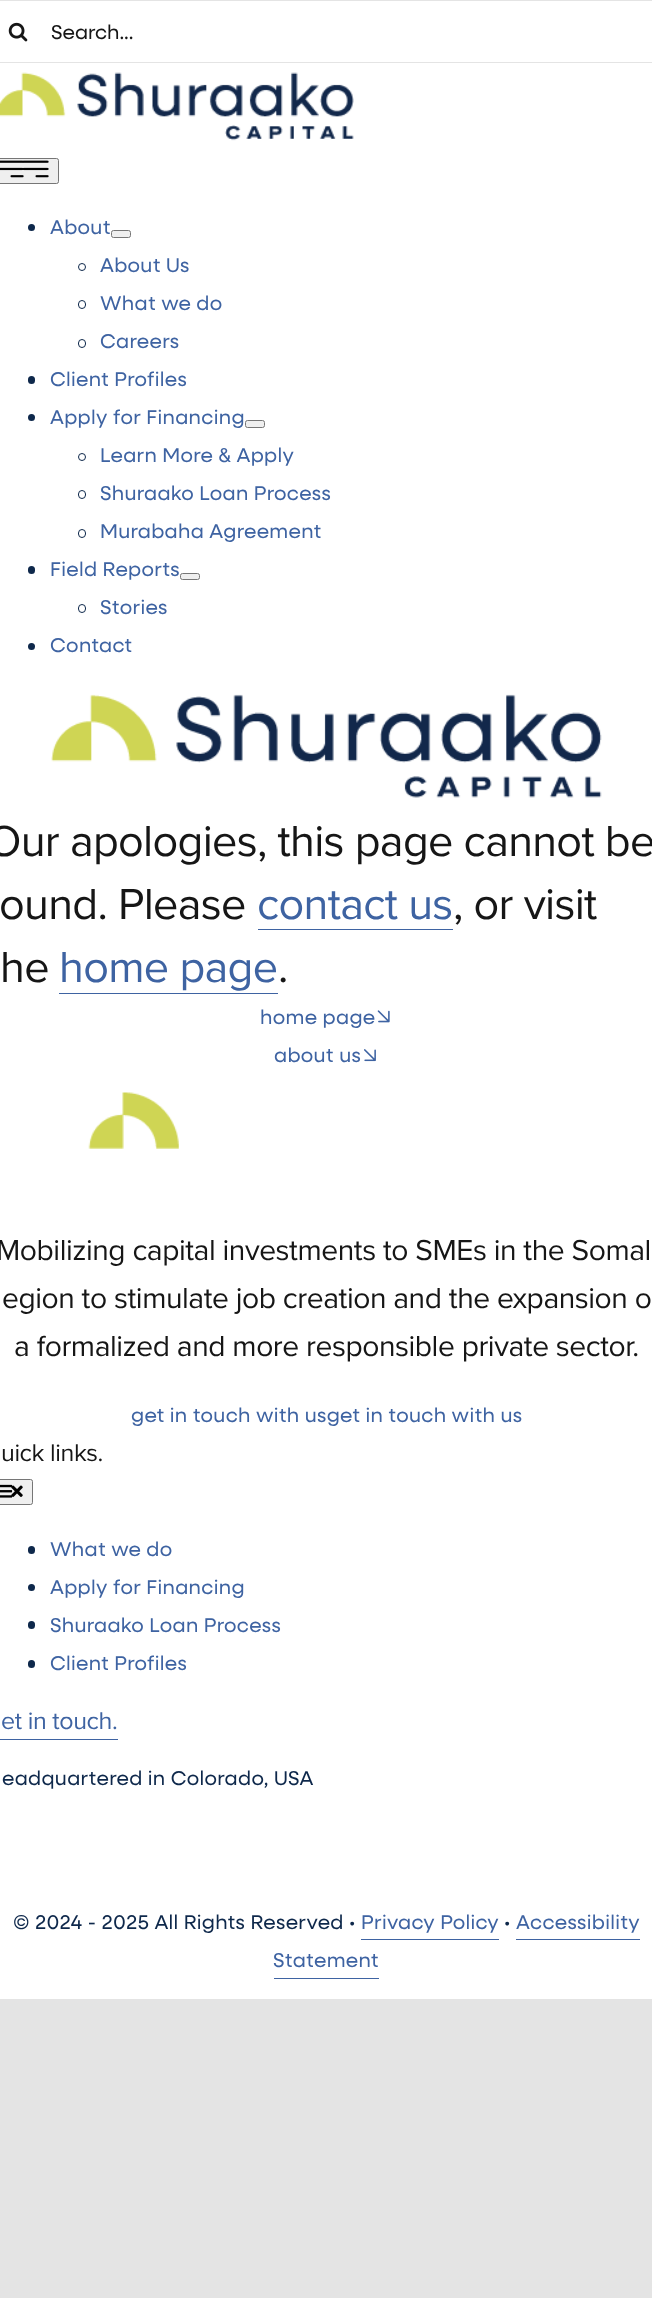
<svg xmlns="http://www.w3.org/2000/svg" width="652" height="2298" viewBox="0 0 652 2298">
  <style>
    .t1 { font: 20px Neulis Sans; fill: #161616; }
    .t2 { font: 20px Neulis Sans; letter-spacing: 0.3px; fill: #3e63a2; }
    .t3 { font: 45px Proxima Nova; letter-spacing: -0.7px; fill: #161616; }
    .t4 { font: 45px Proxima Nova; letter-spacing: -0.7px; fill: #3e63a2; }
    .t5 { font: 30px Proxima Nova; letter-spacing: -0.45px; fill: #161616; }
    .t6 { font: 25px Proxima Nova; letter-spacing: -0.4px; fill: #161616; }
    .t7 { font: 25px Proxima Nova; letter-spacing: -0.4px; fill: #3e63a2; }
    .t8 { font: 20px Neulis Sans; letter-spacing: 0.3px; fill: #0e284b; }
  </style>
  <rect width="100%" height="100%" fill="#e4e4e4"/>
  <rect x="0" y="1" width="652" height="1998" fill="#fff"/>
  <rect x="-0.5" y="0.5" width="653" height="62" fill="none" stroke="#e4e4e4"/>
  <image x="8" y="22" width="20" height="20" href="images/1.png"/>
  <text x="51" y="39" class="t1">Search...</text>
  <image x="0" y="72" width="354" height="69" href="images/2.png"/>
  <path d="M0 158H56.5C58 158 59 159 59 160.5V181.5C59 183 58 184 56.5 184H0Z" fill="#efefef"/>
  <rect x="-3.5" y="158.5" width="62" height="25" rx="2" fill="none" stroke="#767676"/>
  <image x="0" y="160" width="24" height="18" href="images/3.png"/>
  <image x="22" y="160" width="27" height="18" href="images/4.png"/>
  <circle cx="31.5" cy="227.5" r="3.5" fill="#0e284b"/>
  <text x="50" y="234" class="t2">About</text>
  <rect x="111.5" y="230.5" width="19" height="7" rx="2" fill="#efefef" stroke="#767676"/>
  <circle cx="82" cy="267" r="3.5" fill="none" stroke="#0e284b"/>
  <text x="100" y="272" class="t2">About Us</text>
  <rect x="78.5" y="300.5" width="7" height="8" rx="3.5" fill="none" stroke="#0e284b"/>
  <text x="100" y="310" class="t2">What we do</text>
  <rect x="78.5" y="339.5" width="7" height="8" rx="3.5" fill="none" stroke="#0e284b"/>
  <text x="100" y="348" class="t2">Careers</text>
  <rect x="28" y="376" width="7" height="8" rx="3.5" fill="#0e284b"/>
  <text x="50" y="386" class="t2">Client Profiles</text>
  <circle cx="31.5" cy="417.5" r="3.5" fill="#0e284b"/>
  <text x="50" y="424" class="t2">Apply for Financing</text>
  <rect x="245.5" y="420.5" width="19" height="7" rx="2" fill="#efefef" stroke="#767676"/>
  <circle cx="82" cy="457" r="3.5" fill="none" stroke="#0e284b"/>
  <text x="100" y="462" class="t2">Learn More &amp; Apply</text>
  <rect x="78.5" y="490.5" width="7" height="8" rx="3.5" fill="none" stroke="#0e284b"/>
  <text x="100" y="500" class="t2">Shuraako Loan Process</text>
  <rect x="78.5" y="529.5" width="7" height="8" rx="3.5" fill="none" stroke="#0e284b"/>
  <text x="100" y="538" class="t2">Murabaha Agreement</text>
  <rect x="28" y="566" width="7" height="8" rx="3.5" fill="#0e284b"/>
  <text x="50" y="576" class="t2">Field Reports</text>
  <rect x="180.5" y="573.5" width="19" height="6" rx="2" fill="#efefef" stroke="#767676"/>
  <rect x="78.5" y="604.5" width="7" height="8" rx="3.5" fill="none" stroke="#0e284b"/>
  <text x="100" y="614" class="t2">Stories</text>
  <circle cx="31.5" cy="646.5" r="3.5" fill="#0e284b"/>
  <text x="50" y="652" class="t2">Contact</text>
  <image x="51" y="694" width="551" height="104" href="images/5.png"/>
  <text x="-13" y="856" class="t3">Our apologies, this page cannot be</text>
  <text x="-1" y="919" class="t3">ound. Please</text>
  <text x="257" y="919" class="t4">contact us</text>
  <rect x="258" y="929" width="195" height="1" fill="#3e63a2"/>
  <text x="453" y="919" class="t3">, or visit</text>
  <text x="0" y="982" class="t3">he</text>
  <text x="59" y="982" class="t4">home page</text>
  <rect x="59" y="993" width="219" height="1" fill="#3e63a2"/>
  <text x="278" y="982" class="t3">.</text>
  <text x="260" y="1024" class="t2">home page</text>
  <image x="377" y="1010" width="13" height="13" href="images/6.png"/>
  <text x="274" y="1062" class="t2">about us</text>
  <image x="364" y="1049" width="12" height="13" href="images/7.png"/>
  <image x="88" y="1092" width="91" height="57" href="images/8.png"/>
  <text x="-4" y="1260" class="t5">Mobilizing capital investments to SMEs in the Somal</text>
  <text x="2" y="1308" class="t5">egion to stimulate job creation and the expansion o</text>
  <text x="14" y="1356" class="t5">a formalized and more responsible private sector.</text>
  <text x="131" y="1422" class="t2">get in touch with usget in touch with us</text>
  <text x="1" y="1461" class="t6">uick links.</text>
  <path d="M0 1479H30.5C32 1479 33 1480 33 1481.5V1502.5C33 1504 32 1505 30.5 1505H0Z" fill="#efefef"/>
  <rect x="-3.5" y="1479.5" width="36" height="25" rx="2" fill="none" stroke="#767676"/>
  <image x="0" y="1484" width="13" height="14" href="images/9.png"/>
  <image x="11" y="1485" width="12" height="12" href="images/10.png"/>
  <rect x="28" y="1546" width="7" height="8" rx="3.5" fill="#0e284b"/>
  <text x="50" y="1556" class="t2">What we do</text>
  <circle cx="31.5" cy="1587.5" r="3.5" fill="#0e284b"/>
  <text x="50" y="1594" class="t2">Apply for Financing</text>
  <rect x="28" y="1621" width="7" height="8" rx="3.5" fill="#0e284b"/>
  <text x="50" y="1632" class="t2">Shuraako Loan Process</text>
  <rect x="28" y="1660" width="7" height="8" rx="3.5" fill="#0e284b"/>
  <text x="50" y="1670" class="t2">Client Profiles</text>
  <text x="1" y="1729" class="t7">et in touch.</text>
  <rect x="0" y="1739" width="118" height="1" fill="#3e63a2"/>
  <text x="2" y="1785" class="t8">eadquartered in Colorado, USA</text>
  <text x="13" y="1929" class="t8">© 2024 - 2025 All Rights Reserved •</text>
  <text x="361" y="1929" class="t2">Privacy Policy</text>
  <rect x="361" y="1939" width="138" height="1" fill="#3e63a2"/>
  <text x="504" y="1929" class="t8">•</text>
  <text x="516" y="1929" class="t2">Accessibility</text>
  <rect x="516" y="1939" width="124" height="1" fill="#3e63a2"/>
  <text x="273" y="1967" class="t2">Statement</text>
  <rect x="274" y="1978" width="105" height="1" fill="#3e63a2"/>
</svg>
